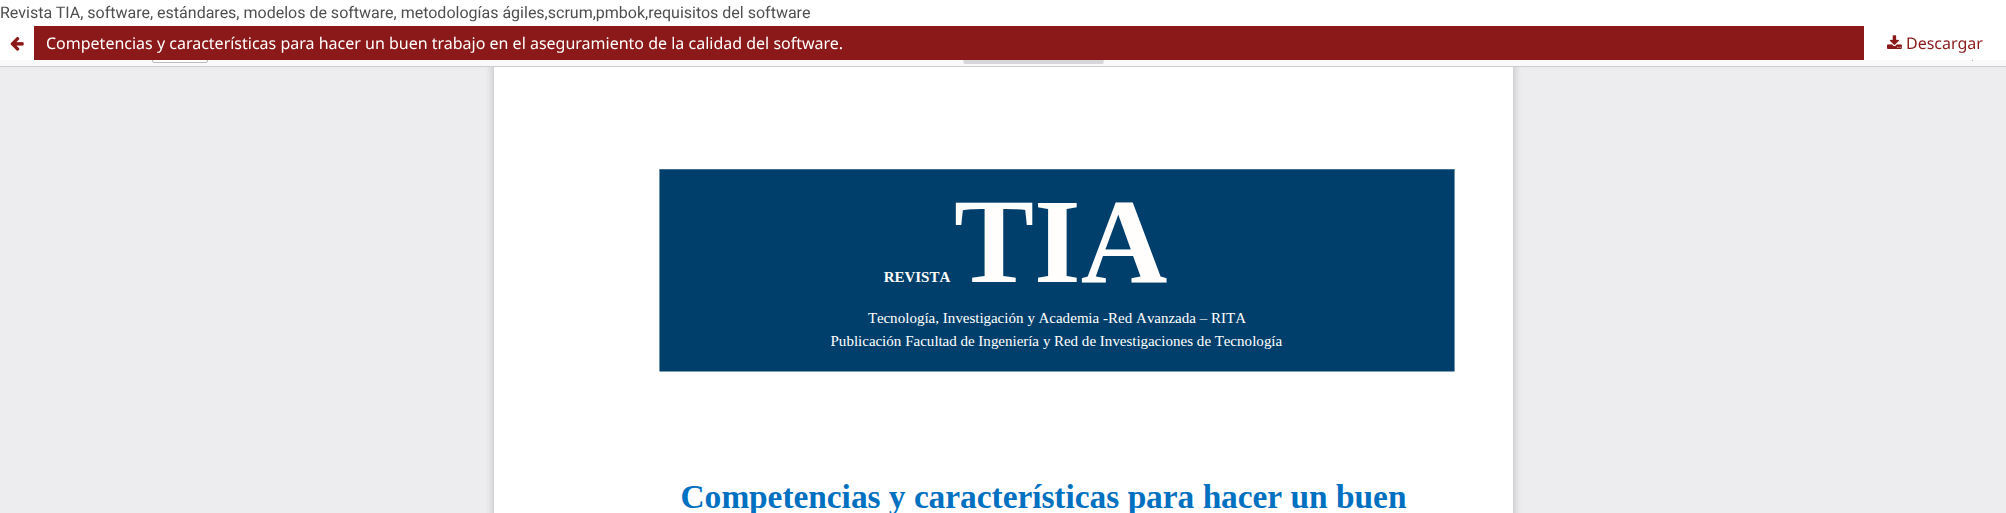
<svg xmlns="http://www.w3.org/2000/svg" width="2006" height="513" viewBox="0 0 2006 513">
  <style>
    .t1 { font: 16px Roboto; fill: #4f4f4f; }
    .t2 { font: 16px Noto Sans; fill: #fff; }
    .t3 { font: 16px Noto Sans; fill: #8c1919; }
  </style>
  <rect width="100%" height="100%" fill="#fff"/>
  <text x="0" y="18" class="t1">Revista TIA, software, estándares, modelos de software, metodologías ágiles,scrum,pmbok,requisitos del software</text>
  <rect x="34" y="26" width="1830" height="34" fill="#8c1919"/>
  <image x="10" y="36" width="14" height="15" href="images/1.png"/>
  <text x="46" y="49" class="t2">Competencias y características para hacer un buen trabajo en el aseguramiento de la calidad del software.</text>
  <image x="1887" y="35" width="15" height="14" href="images/2.png"/>
  <text x="1906" y="49" class="t3">Descargar</text>
  <image x="0" y="60" width="2006" height="453" href="images/3.png"/>
</svg>
